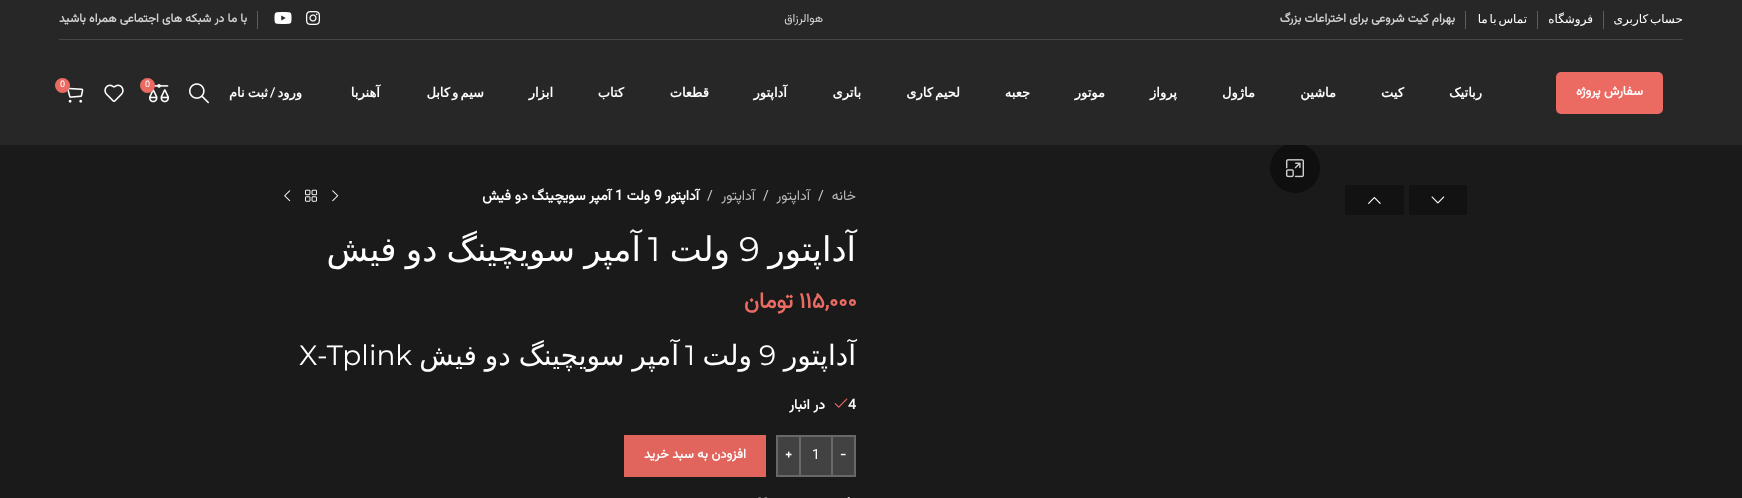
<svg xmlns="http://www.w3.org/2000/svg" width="1742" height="498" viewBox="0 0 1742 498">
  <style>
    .t1 { font: 12px DejaVu Sans; direction: rtl; fill: #fff; }
    .t2 { font: bold 12px Vazirmatn; direction: rtl; fill: #d1d1d1; }
    .t3 { font: 12px Vazirmatn; direction: rtl; fill: #d1d1d1; }
    .t4 { font: bold 13px Vazirmatn; direction: rtl; fill: #fff; }
    .t5 { font: bold 13px DejaVu Sans; direction: rtl; fill: #fff; }
    .t6 { font: bold 13px Lato; direction: rtl; fill: #fff; }
    .t7 { font: 9px Vazirmatn; fill: #fff; }
    .t8 { font: 14px Vazirmatn; direction: rtl; fill: #bababa; }
    .t9 { font: 14px Vazirmatn; fill: #d1d1d1; }
    .t10 { font: bold 14px Vazirmatn; direction: rtl; fill: #fff; }
    .t11 { font: bold 14px Vazirmatn; fill: #fff; }
    .t12 { font: 34px DejaVu Sans; direction: rtl; fill: #fff; }
    .t13 { font: 34px Montserrat; fill: #fff; }
    .t14 { font: bold 22px Vazirmatn; fill: #eb6b63; }
    .t15 { font: bold 22px Vazirmatn; direction: rtl; fill: #eb6b63; }
    .t16 { font: 28px DejaVu Sans; direction: rtl; fill: #fff; }
    .t17 { font: 28px Montserrat; fill: #fff; }
    .t18 { font: bold 13px Vazirmatn; fill: #fff; }
    .t19 { font: 14px Vazirmatn; fill: #fff; }
  </style>
  <rect width="100%" height="100%" fill="#1a1a1a"/>
  <circle cx="1295" cy="168" r="25" fill="#0f0f0f"/>
  <rect x="0" y="0" width="1742" height="145" fill="#272727"/>
  <rect x="59" y="39" width="1624" height="1" fill="#474747"/>
  <text x="1683" y="23" word-spacing="-2" class="t1">حساب کاربری</text>
  <rect x="1603" y="11" width="1" height="18" fill="#5d5d5d"/>
  <text x="1593" y="23" class="t1">فروشگاه</text>
  <rect x="1537" y="11" width="1" height="18" fill="#5d5d5d"/>
  <text x="1527" y="23" word-spacing="-2" class="t1">تماس با ما</text>
  <rect x="1465" y="11" width="1" height="18" fill="#5d5d5d"/>
  <text x="1455" y="22" class="t2">بهرام کیت شروعی برای اختراعات بزرگ</text>
  <text x="823" y="22" class="t3">هوالرزاق</text>
  <image x="306" y="11" width="14" height="14" href="images/1.png"/>
  <image x="274" y="12" width="18" height="12" href="images/2.png"/>
  <rect x="257" y="11" width="1" height="18" fill="#5d5d5d"/>
  <text x="247" y="22" class="t2">با ما در شبکه های اجتماعی همراه باشید</text>
  <rect x="1556" y="72" width="107" height="42" rx="5" fill="#eb6b63"/>
  <text x="1643" y="95" class="t4">سفارش پروژه</text>
  <text x="1482" y="97" class="t5">رباتیک</text>
  <text x="1404" y="97" class="t5">کیت</text>
  <text x="1336" y="97" class="t5">ماشین</text>
  <text x="1255" y="97" class="t5">ماژول</text>
  <text x="1177" y="97" class="t5">پرواز</text>
  <text x="1105" y="97" class="t5">موتور</text>
  <text x="1030" y="97" class="t5">جعبه</text>
  <text x="960" y="97" word-spacing="-2" class="t5">لحیم کاری</text>
  <text x="861" y="97" class="t5">باتری</text>
  <text x="787" y="97" class="t5">آداپتور</text>
  <text x="709" y="97" class="t5">قطعات</text>
  <text x="624" y="97" class="t5">کتاب</text>
  <text x="553" y="97" class="t5">ابزار</text>
  <text x="484" y="97" word-spacing="-2" class="t5">سیم و کابل</text>
  <text x="380" y="97" class="t5">آهنربا</text>
  <text x="302" y="97" class="t5">ورود</text>
  <text x="275" y="97" class="t6">/</text>
  <text x="268" y="97" word-spacing="-1" class="t5">ثبت نام</text>
  <image x="189" y="83" width="20" height="21" href="images/3.png"/>
  <image x="149" y="84" width="20" height="19" href="images/4.png"/>
  <circle cx="147.5" cy="85.5" r="7.5" fill="#eb6b63"/>
  <text x="145" y="87" class="t7">0</text>
  <image x="104" y="84" width="20" height="18" href="images/5.png"/>
  <image x="67" y="87" width="17" height="16" href="images/6.png"/>
  <circle cx="62.5" cy="85.5" r="7.5" fill="#eb6b63"/>
  <text x="60" y="87" class="t7">0</text>
  <image x="1286" y="159" width="18" height="19" href="images/7.png"/>
  <rect x="1409" y="185" width="58" height="30" fill="#121212"/>
  <image x="1431" y="196" width="14" height="8" href="images/8.png"/>
  <rect x="1345" y="185" width="59" height="30" fill="#121212"/>
  <image x="1368" y="197" width="13" height="7" href="images/9.png"/>
  <text x="856" y="200" class="t8">خانه</text>
  <text x="818" y="200" class="t9">/</text>
  <text x="810" y="200" class="t8">آداپتور</text>
  <text x="763" y="200" class="t9">/</text>
  <text x="755" y="200" class="t8">آداپتور</text>
  <text x="707" y="200" class="t9">/</text>
  <text x="699" y="200" class="t10">آداپتور</text>
  <text x="654" y="200" class="t11">9</text>
  <text x="650" y="200" class="t10">ولت</text>
  <text x="615" y="200" class="t11">1</text>
  <text x="611" y="200" class="t10">آمپر سویچینگ دو فیش</text>
  <image x="332" y="190" width="7" height="12" href="images/10.png"/>
  <image x="305" y="189" width="12" height="13" href="images/11.png"/>
  <image x="284" y="190" width="7" height="12" href="images/12.png"/>
  <text x="856" y="261" class="t12">آداپتور</text>
  <text x="739" y="261" class="t13">9</text>
  <text x="730" y="261" class="t12">ولت</text>
  <text x="648" y="261" class="t13">1</text>
  <text x="641" y="261" word-spacing="-1.5" class="t12">آمپر سویچینگ دو فیش</text>
  <text x="799" y="308" class="t14">۱۱۵,۰۰۰</text>
  <text x="793" y="308" class="t15">تومان</text>
  <text x="856" y="365" class="t16">آداپتور</text>
  <text x="759" y="365" class="t17">9</text>
  <text x="752" y="365" class="t16">ولت</text>
  <text x="685" y="365" class="t17">1</text>
  <text x="679" y="365" word-spacing="-1" class="t16">آمپر سویچینگ دو فیش</text>
  <text x="299" y="365" class="t17">X-Tplink</text>
  <text x="848" y="409" class="t11">4</text>
  <image x="834" y="398" width="14" height="10" href="images/13.png"/>
  <text x="825" y="409" class="t10">در انبار</text>
  <rect x="832" y="436" width="23" height="40" fill="#424242" stroke="#686868" stroke-width="2"/>
  <text x="840" y="458" class="t18">-</text>
  <rect x="801" y="437" width="30" height="38" fill="#424242"/>
  <rect x="801" y="435" width="30" height="2" fill="#686868"/>
  <rect x="801" y="475" width="30" height="2" fill="#686868"/>
  <text x="812" y="459" class="t19">1</text>
  <rect x="777" y="436" width="23" height="40" fill="#424242" stroke="#686868" stroke-width="2"/>
  <text x="785" y="458" class="t18">+</text>
  <rect x="624" y="435" width="142" height="42" fill="#e2655d"/>
  <text x="746" y="458" class="t4">افزودن به سبد خرید</text>
  <image x="847" y="497" width="3" height="1" href="images/14.png"/>
  <image x="758" y="497" width="10" height="1" href="images/15.png"/>
</svg>
